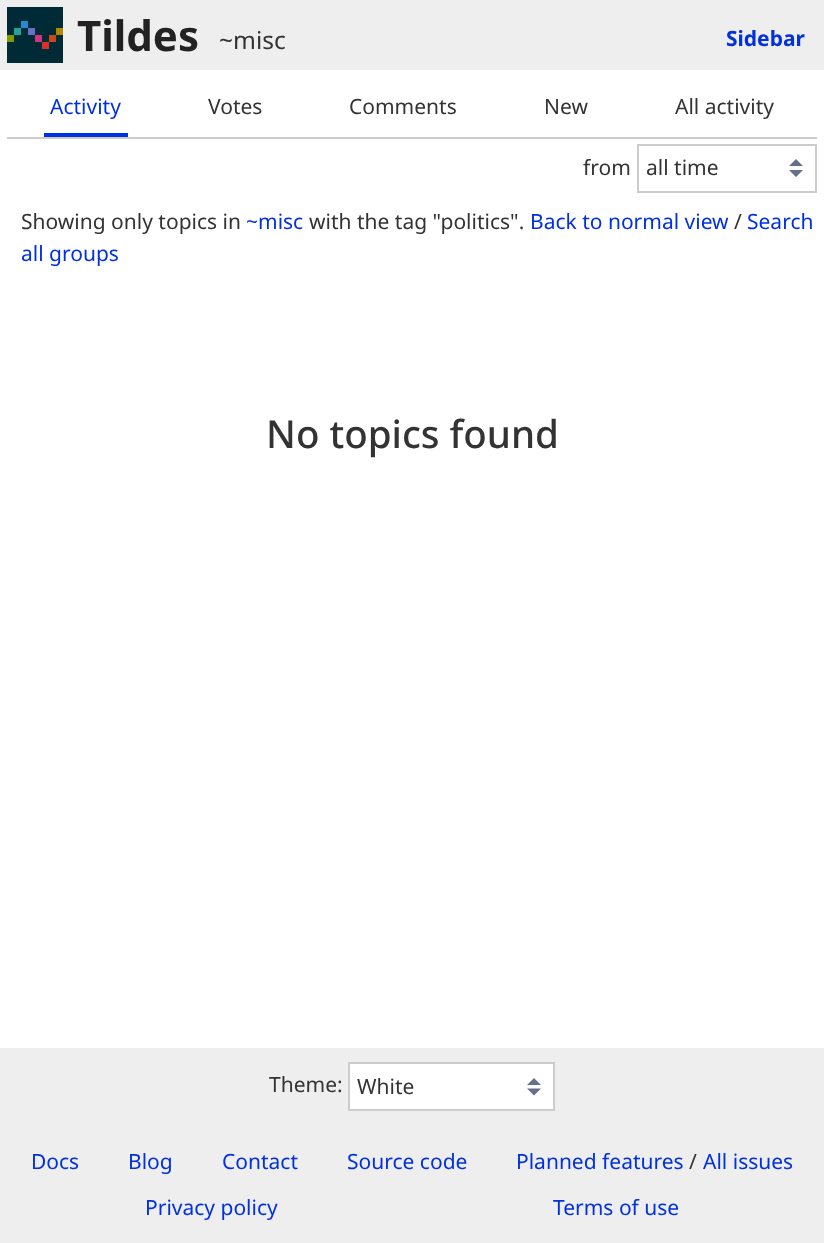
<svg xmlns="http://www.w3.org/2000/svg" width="824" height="1243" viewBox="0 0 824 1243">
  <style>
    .t1 { font: bold 42px Noto Sans; fill: #222; }
    .t2 { font: 24.5px Noto Sans; fill: #333; }
    .t3 { font: bold 21px Noto Sans; fill: #0030e0; }
    .t4 { font: 21px Noto Sans; fill: #0030e0; }
    .t5 { font: 21px Noto Sans; fill: #333; }
    .t6 { font: 500 38.5px Noto Sans; fill: #333; }
  </style>
  <rect width="100%" height="100%" fill="#eee"/>
  <image x="7" y="7" width="56" height="56" href="images/1.png"/>
  <text x="77" y="51" class="t1">Tildes</text>
  <text x="219" y="49" class="t2">~misc</text>
  <text x="726" y="46" class="t3">Sidebar</text>
  <rect x="0" y="70" width="824" height="978" fill="#fff"/>
  <rect x="7" y="137" width="810" height="2" fill="#ccc"/>
  <rect x="44" y="133" width="84" height="4" fill="#0030e0"/>
  <text x="50" y="114" class="t4">Activity</text>
  <text x="208" y="114" class="t5">Votes</text>
  <text x="349" y="114" class="t5">Comments</text>
  <text x="544" y="114" class="t5">New</text>
  <text x="675" y="114" class="t5">All activity</text>
  <text x="583" y="175" class="t5">from</text>
  <path d="M796 159L789 166H803ZM796 177L789 170H803Z" fill="#667189"/>
  <rect x="638" y="145" width="178" height="47" fill="none" stroke="#ccc" stroke-width="2"/>
  <text x="646" y="175" class="t5">all time</text>
  <text x="21" y="229" class="t5">Showing only topics in</text>
  <text x="246" y="229" class="t4">~misc</text>
  <text x="309" y="229" class="t5">with the tag "politics".</text>
  <text x="530" y="229" class="t4">Back to normal view</text>
  <text x="734" y="229" class="t5">/</text>
  <text x="747" y="229" class="t4">Search</text>
  <text x="21" y="261" class="t4">all groups</text>
  <text x="266" y="448" class="t6">No topics found</text>
  <text x="269" y="1092" class="t5">Theme:</text>
  <rect x="350" y="1064" width="203" height="45" fill="#fff"/>
  <path d="M534 1078L527 1085H541ZM534 1095.5L527 1088.5H541Z" fill="#667189"/>
  <rect x="349" y="1063" width="205" height="47" fill="none" stroke="#ccc" stroke-width="2"/>
  <text x="357" y="1094" class="t5">White</text>
  <text x="31" y="1169" class="t4">Docs</text>
  <text x="128" y="1169" class="t4">Blog</text>
  <text x="222" y="1169" class="t4">Contact</text>
  <text x="347" y="1169" class="t4">Source code</text>
  <text x="516" y="1169" class="t4">Planned features</text>
  <text x="689" y="1169" class="t5">/</text>
  <text x="703" y="1169" class="t4">All issues</text>
  <text x="145" y="1215" class="t4">Privacy policy</text>
  <text x="553" y="1215" class="t4">Terms of use</text>
</svg>
